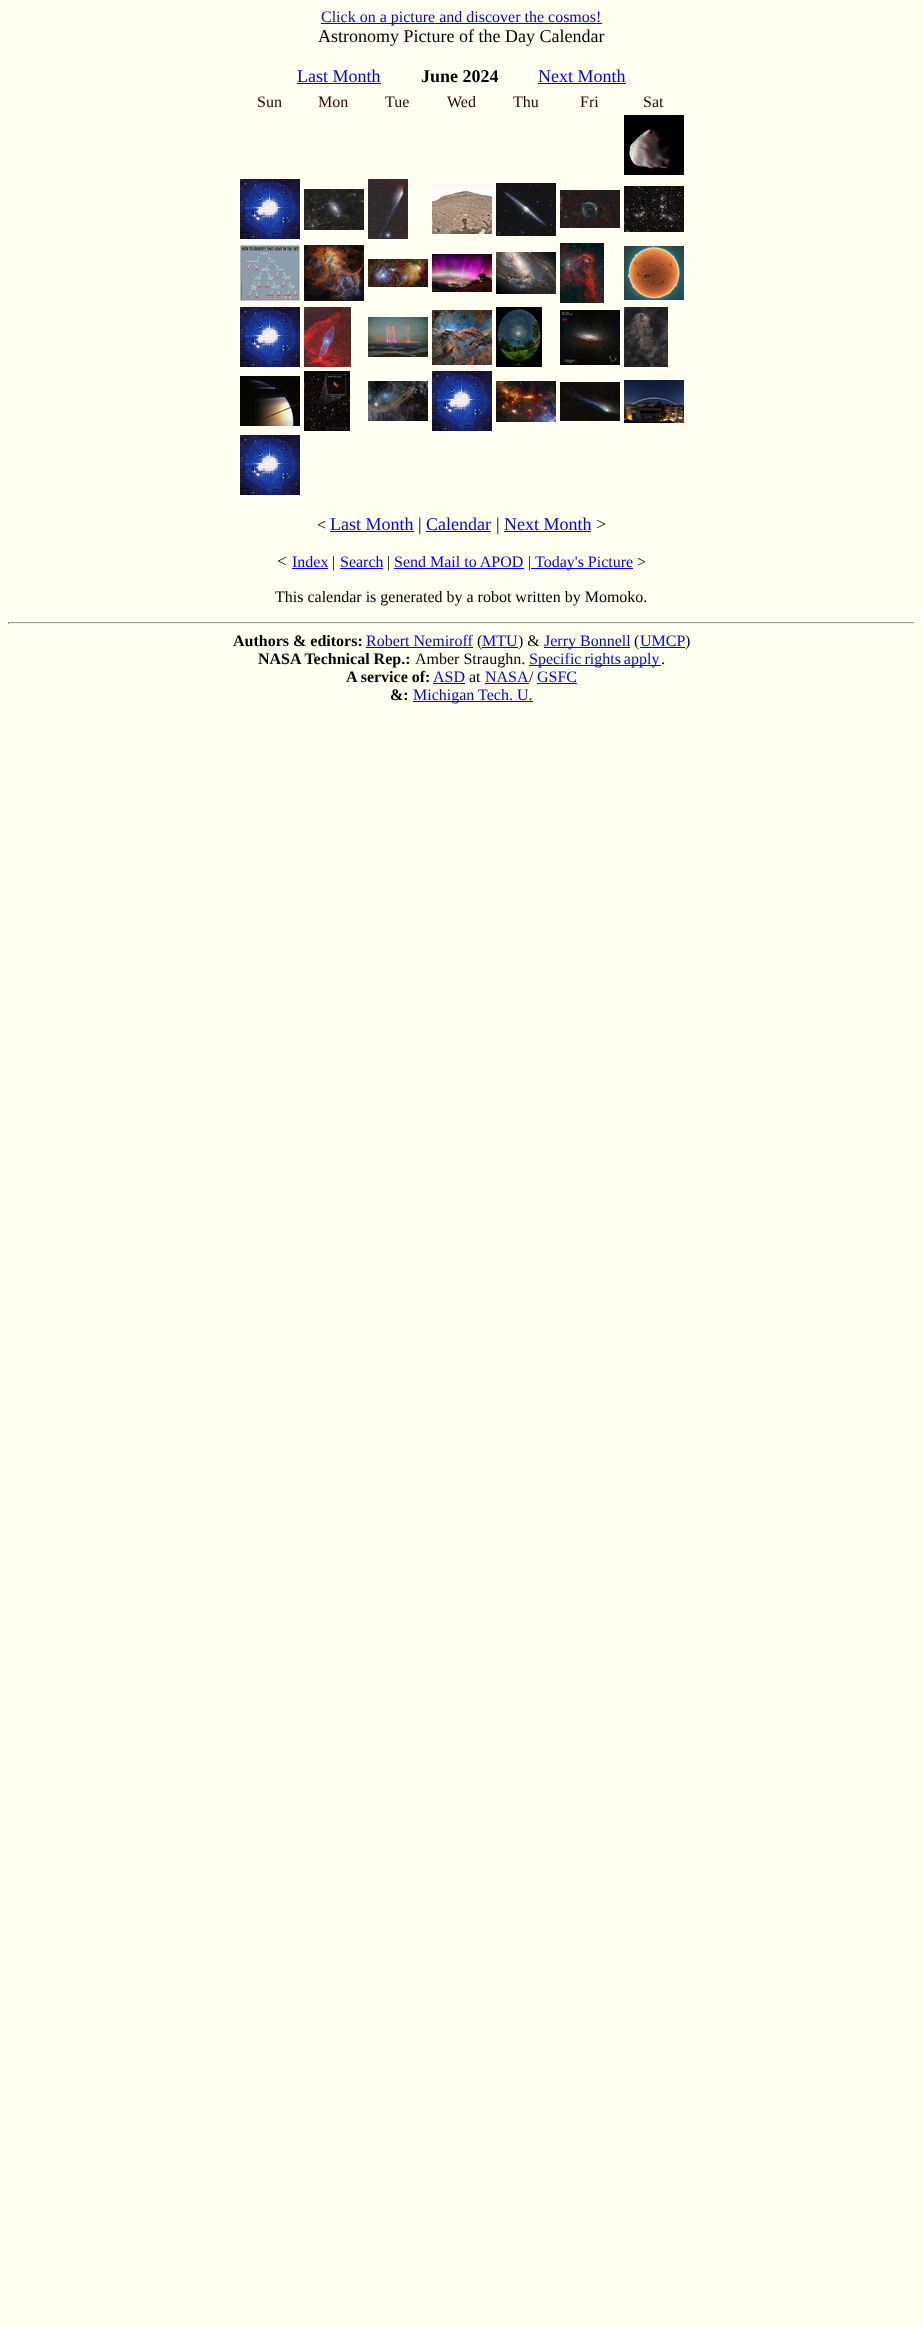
<svg xmlns="http://www.w3.org/2000/svg" width="923" height="2327" viewBox="0 0 923 2327">
  <style>
    .t1 { font: 16px Liberation Serif; fill: #00e; }
    .t2 { font: 18px Liberation Serif; fill: #000; }
    .t3 { font: 18px Liberation Serif; fill: #00e; }
    .t4 { font: bold 18px Liberation Serif; fill: #000; }
    .t5 { font: 16px Liberation Serif; fill: #300; }
    .t6 { font: 16px Liberation Serif; fill: #000; }
    .t7 { font: bold 16px Liberation Serif; fill: #000; }
  </style>
  <rect width="100%" height="100%" fill="#fffff2"/>
  <rect x="321" y="23" width="281" height="1" fill="#00e"/>
  <text x="321" y="22" class="t1">Click on a picture and discover the cosmos!</text>
  <text x="318" y="42" class="t2">Astronomy Picture of the Day Calendar</text>
  <text x="297" y="82" class="t3">Last Month</text>
  <rect x="297" y="83" width="84" height="1" fill="#00e"/>
  <text x="421" y="82" class="t4">June 2024</text>
  <text x="538" y="82" class="t3">Next Month</text>
  <rect x="538" y="83" width="88" height="1" fill="#00e"/>
  <text x="257" y="107" class="t5">Sun</text>
  <text x="318" y="107" class="t5">Mon</text>
  <text x="385" y="107" class="t5">Tue</text>
  <text x="447" y="107" class="t5">Wed</text>
  <text x="513" y="107" class="t5">Thu</text>
  <text x="580" y="107" class="t5">Fri</text>
  <text x="643" y="107" class="t5">Sat</text>
  <image x="624" y="115" width="60" height="60" href="images/1.png"/>
  <image x="240" y="179" width="60" height="60" href="images/2.png"/>
  <image x="304" y="189" width="60" height="41" href="images/3.png"/>
  <image x="368" y="179" width="40" height="60" href="images/4.png"/>
  <image x="432" y="184" width="60" height="50" href="images/5.png"/>
  <image x="496" y="183" width="60" height="53" href="images/6.png"/>
  <image x="560" y="190" width="60" height="38" href="images/7.png"/>
  <image x="624" y="186" width="60" height="46" href="images/8.png"/>
  <image x="240" y="245" width="60" height="56" href="images/9.png"/>
  <image x="304" y="245" width="60" height="56" href="images/10.png"/>
  <image x="368" y="259" width="60" height="28" href="images/11.png"/>
  <image x="432" y="254" width="60" height="38" href="images/12.png"/>
  <image x="496" y="252" width="60" height="42" href="images/13.png"/>
  <image x="560" y="243" width="44" height="60" href="images/14.png"/>
  <image x="624" y="246" width="60" height="54" href="images/15.png"/>
  <image x="240" y="307" width="60" height="60" href="images/2.png"/>
  <image x="304" y="307" width="47" height="60" href="images/16.png"/>
  <image x="368" y="317" width="60" height="40" href="images/17.png"/>
  <image x="432" y="310" width="60" height="55" href="images/18.png"/>
  <image x="496" y="307" width="46" height="60" href="images/19.png"/>
  <image x="560" y="310" width="60" height="55" href="images/20.png"/>
  <image x="624" y="307" width="44" height="60" href="images/21.png"/>
  <image x="240" y="376" width="60" height="50" href="images/22.png"/>
  <image x="304" y="371" width="46" height="60" href="images/23.png"/>
  <image x="368" y="381" width="60" height="40" href="images/24.png"/>
  <image x="432" y="371" width="60" height="60" href="images/2.png"/>
  <image x="496" y="381" width="60" height="41" href="images/25.png"/>
  <image x="560" y="382" width="60" height="39" href="images/26.png"/>
  <image x="624" y="380" width="60" height="43" href="images/27.png"/>
  <image x="240" y="435" width="60" height="60" href="images/2.png"/>
  <text x="317" y="530" class="t6">&lt;</text>
  <text x="330" y="530" class="t3">Last Month</text>
  <rect x="330" y="531" width="84" height="1" fill="#00e"/>
  <text x="418" y="530" class="t2">|</text>
  <text x="426" y="530" class="t3">Calendar</text>
  <rect x="426" y="531" width="65" height="1" fill="#00e"/>
  <text x="496" y="530" class="t2">|</text>
  <text x="504" y="530" class="t3">Next Month</text>
  <rect x="504" y="531" width="87" height="1" fill="#00e"/>
  <text x="596" y="530" class="t2">&gt;</text>
  <text x="277" y="567" class="t2">&lt;</text>
  <text x="292" y="567" class="t1">Index</text>
  <rect x="292" y="568" width="36" height="1" fill="#00e"/>
  <text x="332" y="567" class="t6">|</text>
  <text x="340" y="567" class="t1">Search</text>
  <rect x="340" y="568" width="43" height="1" fill="#00e"/>
  <text x="387" y="567" class="t6">|</text>
  <text x="394" y="567" class="t1">Send Mail to APOD</text>
  <rect x="394" y="568" width="130" height="1" fill="#00e"/>
  <text x="528" y="567" class="t6">|</text>
  <rect x="531" y="568" width="102" height="1" fill="#00e"/>
  <text x="535" y="567" class="t1">Today's Picture</text>
  <text x="637" y="567" class="t6">&gt;</text>
  <text x="275" y="602" class="t6">This calendar is generated by a robot written by Momoko.</text>
  <rect x="8" y="622" width="907" height="1" fill="#9f9f9f"/>
  <rect x="914" y="622" width="1" height="2" fill="#eee"/>
  <rect x="8" y="623" width="907" height="1" fill="#eee"/>
  <rect x="8" y="622" width="1" height="2" fill="#9f9f9f"/>
  <text x="233" y="646" class="t7">Authors &amp; editors:</text>
  <text x="366" y="646" class="t1">Robert Nemiroff</text>
  <rect x="366" y="647" width="107" height="1" fill="#00e"/>
  <text x="477" y="646" class="t6">(</text>
  <text x="482" y="646" class="t1">MTU</text>
  <rect x="482" y="647" width="36" height="1" fill="#00e"/>
  <text x="518" y="646" class="t6">) &amp;</text>
  <rect x="544" y="647" width="86" height="1" fill="#00e"/>
  <text x="544" y="646" class="t1">Jerry Bonnell</text>
  <text x="634" y="646" class="t6">(</text>
  <text x="640" y="646" class="t1">UMCP</text>
  <rect x="640" y="647" width="45" height="1" fill="#00e"/>
  <text x="685" y="646" class="t6">)</text>
  <text x="258" y="664" class="t7">NASA Technical Rep.:</text>
  <text x="415" y="664" class="t6">Amber Straughn.</text>
  <rect x="529" y="665" width="132" height="1" fill="#00e"/>
  <text x="529" y="664" word-spacing="-1" class="t1">Specific rights apply</text>
  <text x="661" y="664" class="t6">.</text>
  <text x="346" y="682" class="t7">A service of:</text>
  <text x="433" y="682" class="t1">ASD</text>
  <rect x="433" y="683" width="32" height="1" fill="#00e"/>
  <text x="469" y="682" class="t6">at</text>
  <text x="485" y="682" class="t1">NASA</text>
  <rect x="485" y="683" width="44" height="1" fill="#00e"/>
  <text x="529" y="682" class="t6">/</text>
  <text x="537" y="682" class="t1">GSFC</text>
  <rect x="537" y="683" width="40" height="1" fill="#00e"/>
  <text x="390" y="700" class="t7">&amp;:</text>
  <rect x="413" y="701" width="120" height="1" fill="#00e"/>
  <text x="413" y="700" class="t1">Michigan Tech. U.</text>
</svg>
